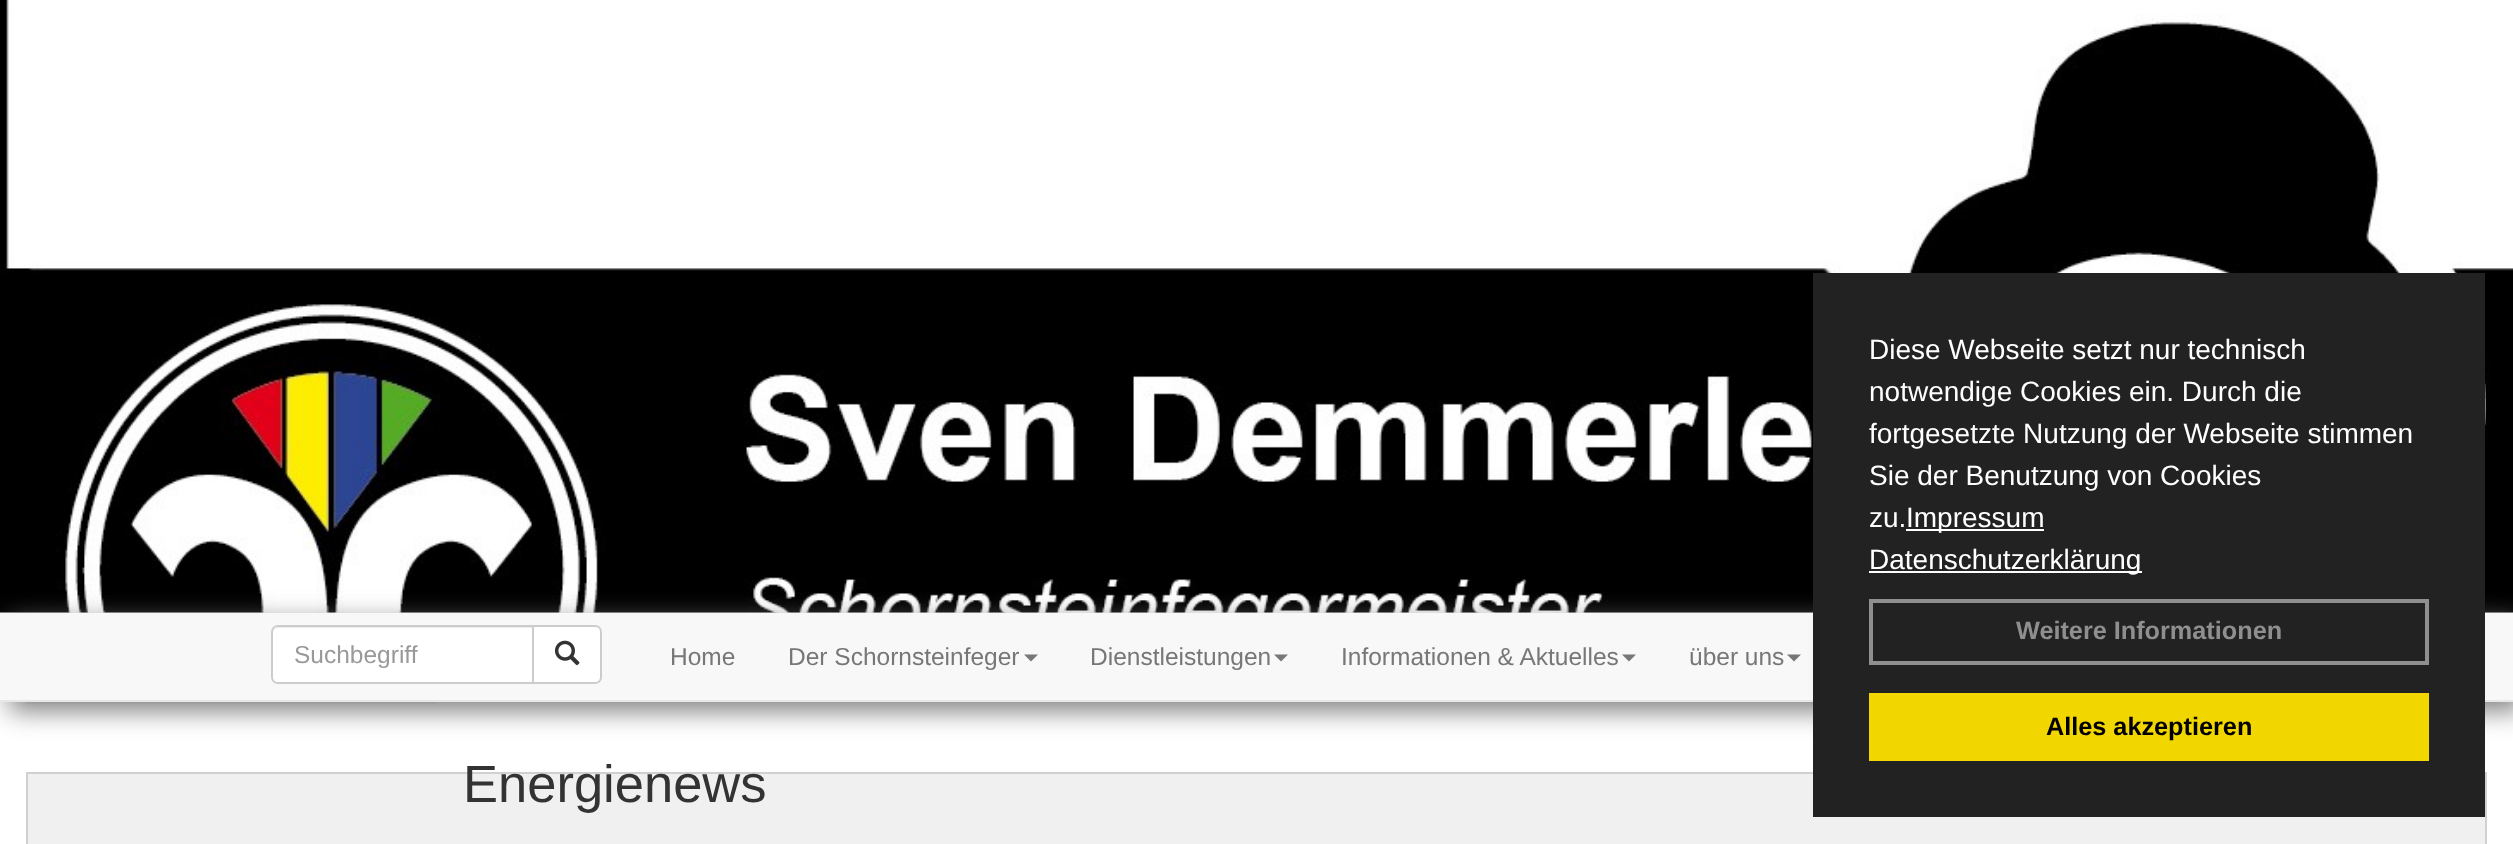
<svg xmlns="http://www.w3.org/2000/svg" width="2513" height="844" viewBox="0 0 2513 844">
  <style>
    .t1 { font: 24.5px Liberation Sans; fill: #999; }
    .t2 { font: 24.5px Liberation Sans; fill: #777; }
    .t3 { font: 52.5px Liberation Sans; fill: #333; }
    .t4 { font: 28px Liberation Sans; fill: #fff; }
    .t5 { font: bold 25.25px Liberation Sans; fill: #8f8f8f; }
    .t6 { font: bold 25.25px Liberation Sans; fill: #000; }
  </style>
  <rect width="100%" height="100%" fill="#fff"/>
  <image x="0" y="0" width="2513" height="613" href="images/1.png"/>
  <rect x="26" y="702" width="410" height="2" fill="#f0f0f0"/>
  <rect x="9" y="621" width="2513" height="90" fill="#808080" filter="blur(13px)"/>
  <rect x="0" y="613" width="2513" height="87" fill="#f8f8f8"/>
  <rect x="0" y="700" width="2513" height="2" fill="#e7e7e7"/>
  <path d="M278 625H534V684H278C274 684 271 681 271 677V632C271 628 274 625 278 625Z" fill="#fff"/>
  <path d="M278 628H532V627H278C274 627 273 631 273 634C273 631 275 628 278 628Z" fill="#ececec"/>
  <path d="M278 626H533V683H278C274.5 683 272 680.5 272 677V632C272 628.5 274.5 626 278 626Z" fill="none" stroke="#ccc" stroke-width="2"/>
  <text x="294" y="663" class="t1">Suchbegriff</text>
  <path d="M533 626H595C598.5 626 601 628.5 601 632V677C601 680.5 598.5 683 595 683H533Z" fill="#fff" stroke="#ccc" stroke-width="2"/>
  <image x="554" y="640" width="26" height="26" href="images/2.png"/>
  <text x="670" y="665" class="t2">Home</text>
  <text x="788" y="665" class="t2">Der Schornsteinfeger</text>
  <path d="M1024 654.5H1038L1031 661.5Z" fill="#777"/>
  <text x="1090" y="665" class="t2">Dienstleistungen</text>
  <path d="M1274 654.5H1288L1281 661.5Z" fill="#777"/>
  <text x="1341" y="665" class="t2">Informationen &amp; Aktuelles</text>
  <path d="M1622 654.5H1636L1629 661.5Z" fill="#777"/>
  <text x="1689" y="665" class="t2">über uns</text>
  <path d="M1787 654.5H1801L1794 661.5Z" fill="#777"/>
  <rect x="27" y="773" width="2459" height="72" fill="#f0f0f0" stroke="#d0d0d0" stroke-width="2"/>
  <text x="463" y="802" class="t3">Energienews</text>
  <rect x="1813" y="273" width="672" height="544" fill="#222"/>
  <text x="1869" y="359" class="t4">Diese Webseite setzt nur technisch</text>
  <text x="1869" y="401" class="t4">notwendige Cookies ein. Durch die</text>
  <text x="1869" y="443" class="t4">fortgesetzte Nutzung der Webseite stimmen</text>
  <text x="1869" y="485" class="t4">Sie der Benutzung von Cookies</text>
  <text x="1869" y="527" class="t4">zu.</text>
  <rect x="1906" y="529" width="138" height="2" fill="#fff"/>
  <text x="1906" y="527" class="t4">Impressum</text>
  <rect x="1869" y="571" width="273" height="2" fill="#fff"/>
  <text x="1869" y="569" class="t4">Datenschutzerklärung</text>
  <rect x="1871" y="601" width="556" height="62" fill="none" stroke="#8f8f8f" stroke-width="4"/>
  <text x="2016" y="639" class="t5">Weitere Informationen</text>
  <rect x="1869" y="693" width="560" height="68" fill="#f1d600"/>
  <text x="2046" y="735" class="t6">Alles akzeptieren</text>
</svg>
